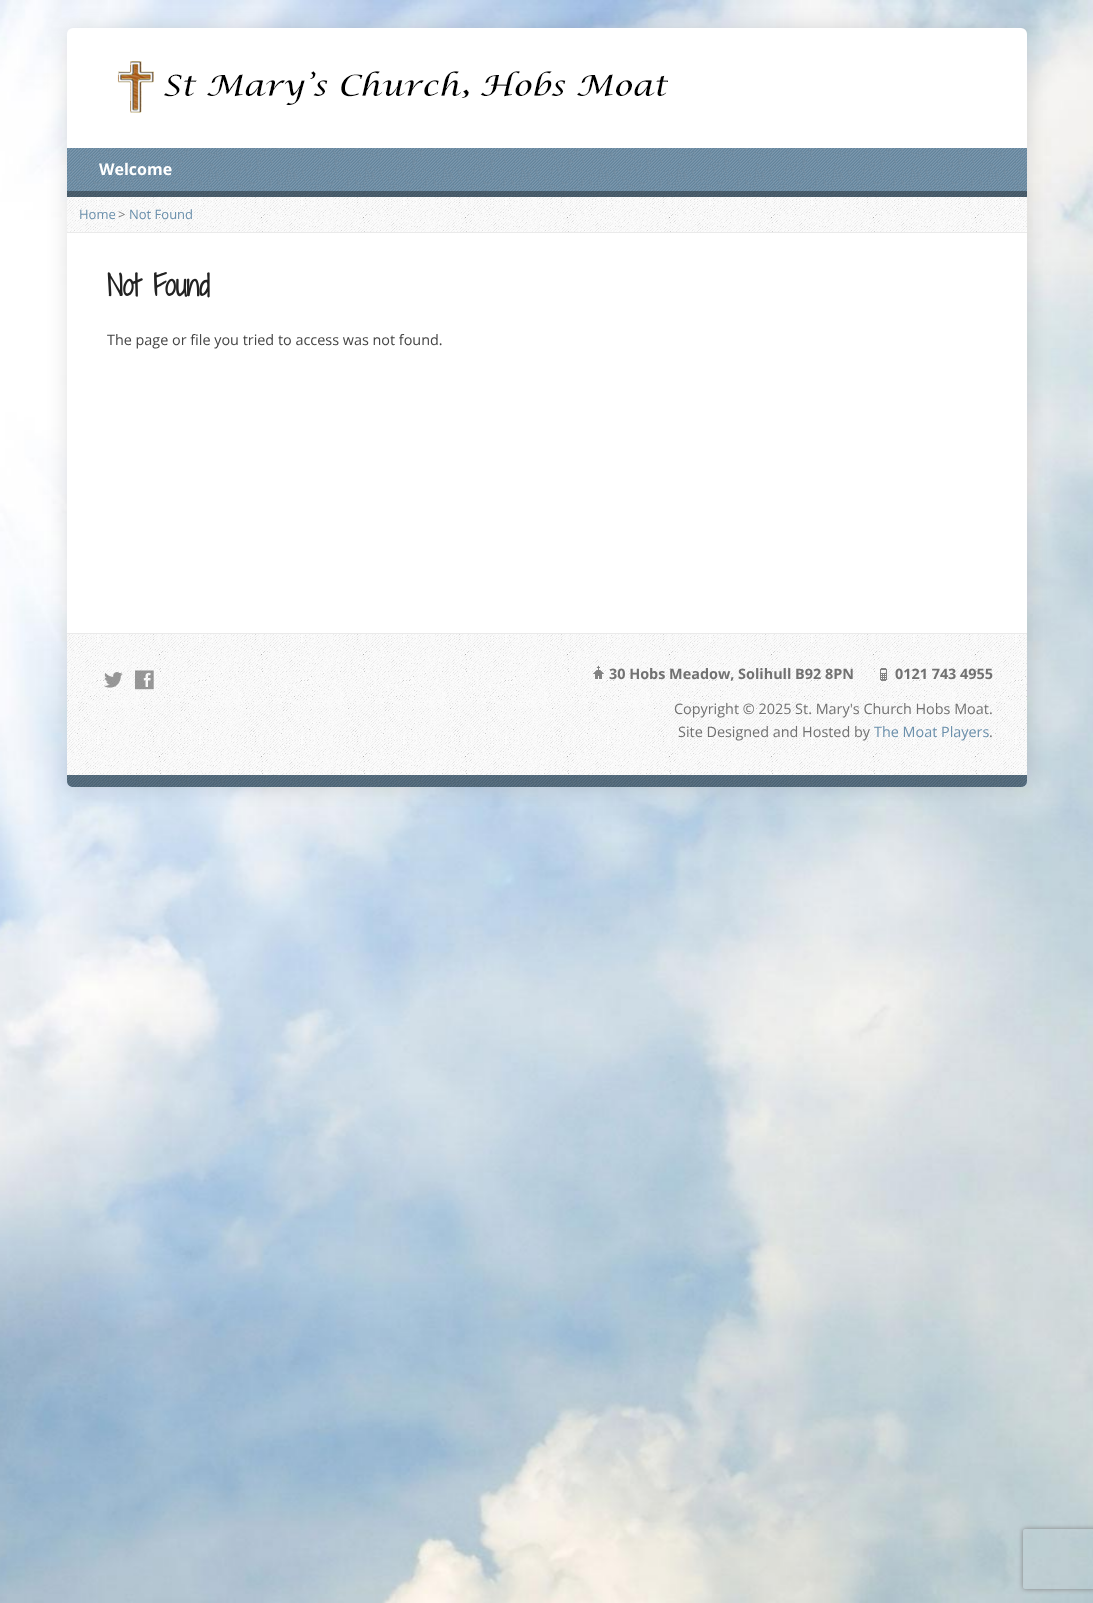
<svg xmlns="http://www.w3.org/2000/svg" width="1093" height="1603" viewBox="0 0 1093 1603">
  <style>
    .t1 { font: bold 16px Open Sans; fill: #fff; }
    .t2 { font: 13px Open Sans; fill: #6a8fab; }
    .t3 { font: 13px Open Sans; fill: #777; }
    .t4 { font: bold 27.5px Shadows Into Light Two; fill: #222; }
    .t5 { font: 14.4px Open Sans; fill: #444; }
    .t6 { font: bold 14.4px Open Sans; fill: #717171; }
    .t7 { font: 14.4px Open Sans; fill: #717171; }
    .t8 { font: 14.4px Open Sans; fill: #6a8fab; }
  </style>
  <defs>
    <clipPath id="clip1"><path d="M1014 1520H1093V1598H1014ZM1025 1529H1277C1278 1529 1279 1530 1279 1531V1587C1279 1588 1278 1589 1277 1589H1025C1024 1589 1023 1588 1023 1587V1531C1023 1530 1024 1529 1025 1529Z" clip-rule="evenodd"/></clipPath>
  </defs>
  <rect width="100%" height="100%" fill="#fff"/>
  <image x="0" y="0" width="1093" height="1603" href="images/1.png"/>
  <rect x="67" y="28" width="960" height="759" rx="6" fill="#0000001f" filter="blur(10px)"/>
  <rect x="67" y="28" width="960" height="759" rx="6" fill="#fff"/>
  <image x="117" y="61" width="551" height="52" href="images/2.png"/>
  <rect x="67" y="148" width="960" height="49" fill="#6a8fab"/>
  <image x="67" y="148" width="960" height="49" href="images/3.png"/>
  <text x="99" y="175" class="t1">Welcome</text>
  <rect x="67" y="191" width="960" height="6" fill="#00000059"/>
  <image x="67" y="197" width="960" height="35" href="images/4.png"/>
  <rect x="67" y="232" width="960" height="1" fill="#eaeaea"/>
  <text x="79" y="219" class="t2">Home</text>
  <text x="118" y="219" class="t3">&gt;</text>
  <text x="129" y="219" class="t2">Not Found</text>
  <text x="107" y="296" class="t4">Not Found</text>
  <text x="107" y="345" class="t5">The page or file you tried to access was not found.</text>
  <image x="67" y="634" width="960" height="141" href="images/5.png"/>
  <rect x="67" y="633" width="960" height="1" fill="#eaeaea"/>
  <image x="104" y="672" width="19" height="16" href="images/6.png"/>
  <image x="135" y="670" width="19" height="20" href="images/7.png"/>
  <image x="593" y="666" width="11" height="13" href="images/8.png"/>
  <text x="609" y="679" class="t6">30 Hobs Meadow, Solihull B92 8PN</text>
  <image x="880" y="668" width="7" height="13" href="images/9.png"/>
  <text x="895" y="679" class="t6">0121 743 4955</text>
  <text x="674" y="714" class="t7">Copyright © 2025 St. Mary's Church Hobs Moat.</text>
  <text x="678" y="737" class="t7">Site Designed and Hosted by</text>
  <text x="874" y="737" class="t8">The Moat Players</text>
  <text x="989" y="737" class="t7">.</text>
  <path d="M67 775H1027V781C1027 784.5 1024.5 787 1021 787H73C69.5 787 67 784.5 67 781Z" fill="#6a8fab"/>
  <image x="67" y="775" width="960" height="12" href="images/10.png"/>
  <g clip-path="url(#clip1)">
    <rect x="1023" y="1529" width="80" height="60" rx="2" fill="#808080" filter="blur(2.5px)"/>
  </g>
</svg>
